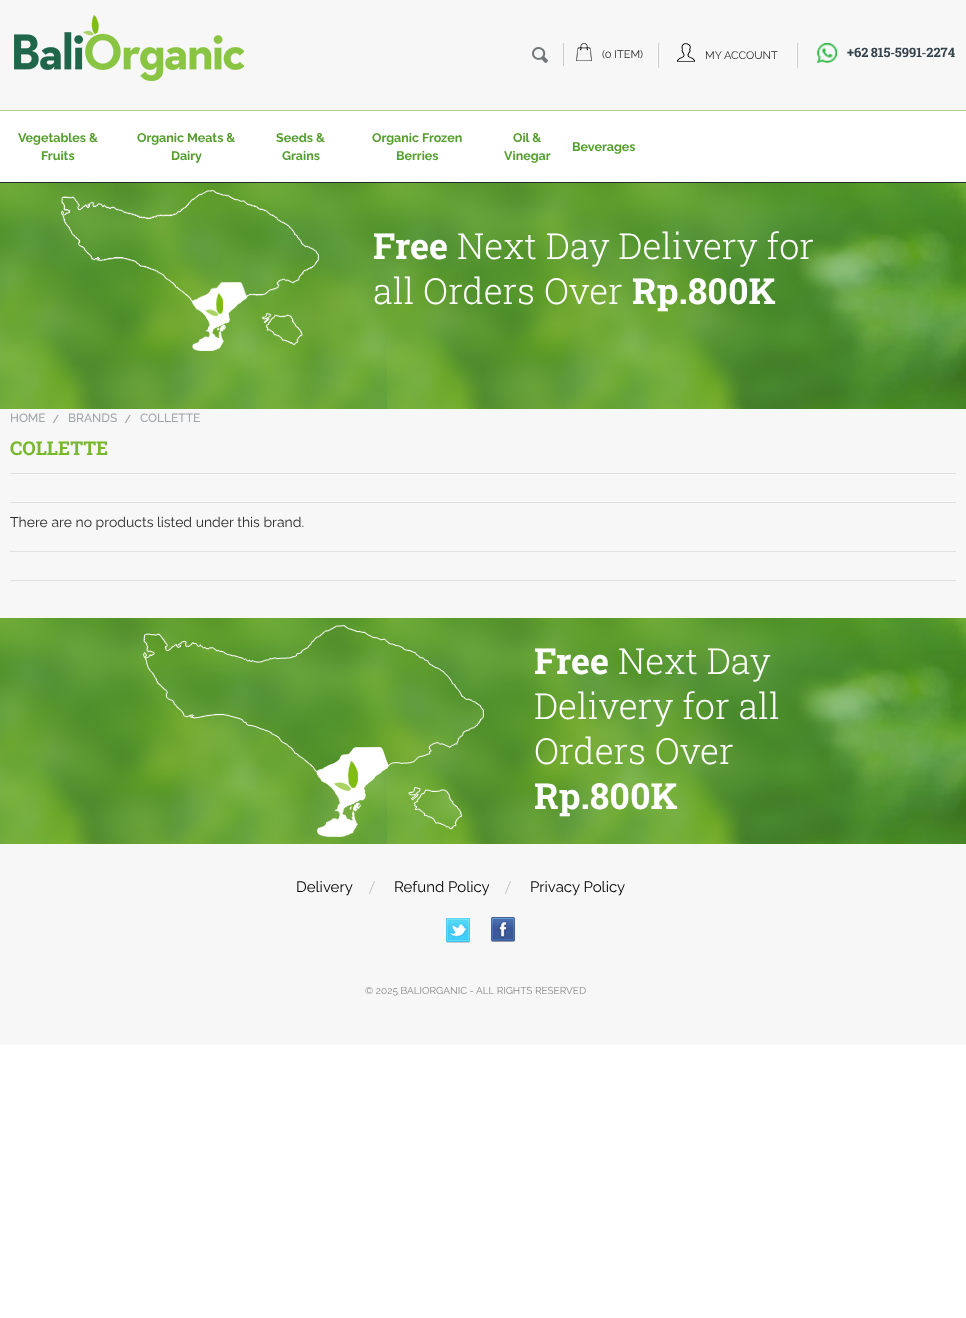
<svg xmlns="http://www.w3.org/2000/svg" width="966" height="1318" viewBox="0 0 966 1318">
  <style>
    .t1 { font: 11px Raleway; fill: #282828; }
    .t2 { font: bold 13px Roboto Slab; fill: #34424c; }
    .t3 { font: bold 12.5px Raleway; fill: #549e2d; }
    .t4 { font: bold 36px Roboto Slab; fill: #fff; }
    .t5 { font: 300 36px Roboto Slab; fill: #fff; }
    .t6 { font: 500 12px Raleway; fill: #9fa4aa; }
    .t7 { font: bold 19px Roboto Slab; fill: #79b72f; }
    .t8 { font: 14px Raleway; fill: #282828; }
    .t9 { font: 15px Raleway; fill: #000; }
    .t10 { font: 10px Raleway; fill: #888; }
  </style>
  <rect width="100%" height="100%" fill="#fff"/>
  <rect x="0" y="0" width="966" height="618" fill="#f7f7f7"/>
  <image x="14" y="15" width="230" height="66" href="images/1.png"/>
  <image x="532" y="47" width="16" height="16" href="images/2.png"/>
  <rect x="563" y="43" width="1" height="23" fill="#ccc"/>
  <image x="576" y="43" width="16" height="18" href="images/3.png"/>
  <text x="602" y="58" class="t1">(0 ITEM)</text>
  <rect x="797" y="43" width="1" height="25" fill="#ccc"/>
  <rect x="657" y="43" width="1" height="25" fill="#fff"/>
  <rect x="796" y="43" width="1" height="25" fill="#fff"/>
  <rect x="658" y="43" width="1" height="25" fill="#ccc"/>
  <image x="677" y="43" width="18" height="19" href="images/4.png"/>
  <text x="705" y="59" class="t1">MY ACCOUNT</text>
  <image x="817" y="43" width="20" height="20" href="images/5.png"/>
  <text x="847" y="57" word-spacing="-1" class="t2">+62 815‑5991‑2274</text>
  <rect x="0" y="111" width="966" height="71" fill="#fff"/>
  <rect x="0" y="110" width="966" height="1" fill="#a9ce96"/>
  <rect x="0" y="182" width="966" height="1" fill="#282828"/>
  <text x="18" y="142" class="t3">Vegetables &amp;</text>
  <text x="41" y="160" class="t3">Fruits</text>
  <text x="137" y="142" class="t3">Organic Meats &amp;</text>
  <text x="171" y="160" class="t3">Dairy</text>
  <text x="276" y="142" class="t3">Seeds &amp;</text>
  <text x="282" y="160" class="t3">Grains</text>
  <text x="372" y="142" class="t3">Organic Frozen</text>
  <text x="396" y="160" class="t3">Berries</text>
  <text x="513" y="142" class="t3">Oil &amp;</text>
  <text x="504" y="160" class="t3">Vinegar</text>
  <text x="572" y="151" class="t3">Beverages</text>
  <image x="0" y="183" width="966" height="226" href="images/6.png"/>
  <image x="61" y="190" width="258" height="161" href="images/7.png"/>
  <text x="373" y="259" class="t4">Free</text>
  <text x="457" y="259" class="t5">Next Day Delivery for</text>
  <text x="373" y="304" class="t5">all Orders Over</text>
  <text x="632" y="304" class="t4">Rp.800K</text>
  <image x="52" y="415" width="7" height="8" href="images/8.png"/>
  <text x="10" y="422" class="t6">HOME</text>
  <image x="124" y="415" width="7" height="8" href="images/8.png"/>
  <text x="68" y="422" class="t6">BRANDS</text>
  <text x="140" y="422" class="t6">COLLETTE</text>
  <text x="10" y="455" class="t7">COLLETTE</text>
  <rect x="10" y="473" width="946" height="1" fill="#e0e0e0"/>
  <rect x="10" y="502" width="946" height="1" fill="#e0e0e0"/>
  <text x="10" y="527" class="t8">There are no products listed under this brand.</text>
  <rect x="10" y="551" width="946" height="1" fill="#e0e0e0"/>
  <rect x="10" y="580" width="946" height="1" fill="#e0e0e0"/>
  <rect x="0" y="844" width="966" height="201" fill="#f7f7f7"/>
  <image x="0" y="618" width="966" height="226" href="images/6.png"/>
  <image x="143" y="625" width="341" height="212" href="images/9.png"/>
  <text x="534" y="674" class="t4">Free</text>
  <text x="618" y="674" class="t5">Next Day</text>
  <text x="534" y="719" class="t5">Delivery for all</text>
  <text x="534" y="764" class="t5">Orders Over</text>
  <text x="534" y="809" class="t4">Rp.800K</text>
  <image x="369" y="881" width="6" height="13" href="images/10.png"/>
  <text x="296" y="892" class="t9">Delivery</text>
  <image x="505" y="881" width="6" height="13" href="images/10.png"/>
  <text x="394" y="892" class="t9">Refund Policy</text>
  <text x="530" y="892" class="t9">Privacy Policy</text>
  <image x="446" y="918" width="24" height="25" href="images/11.png"/>
  <image x="491" y="917" width="24" height="25" href="images/12.png"/>
  <text x="365" y="994" class="t10">© 2025 BALIORGANIC - ALL RIGHTS RESERVED</text>
</svg>
